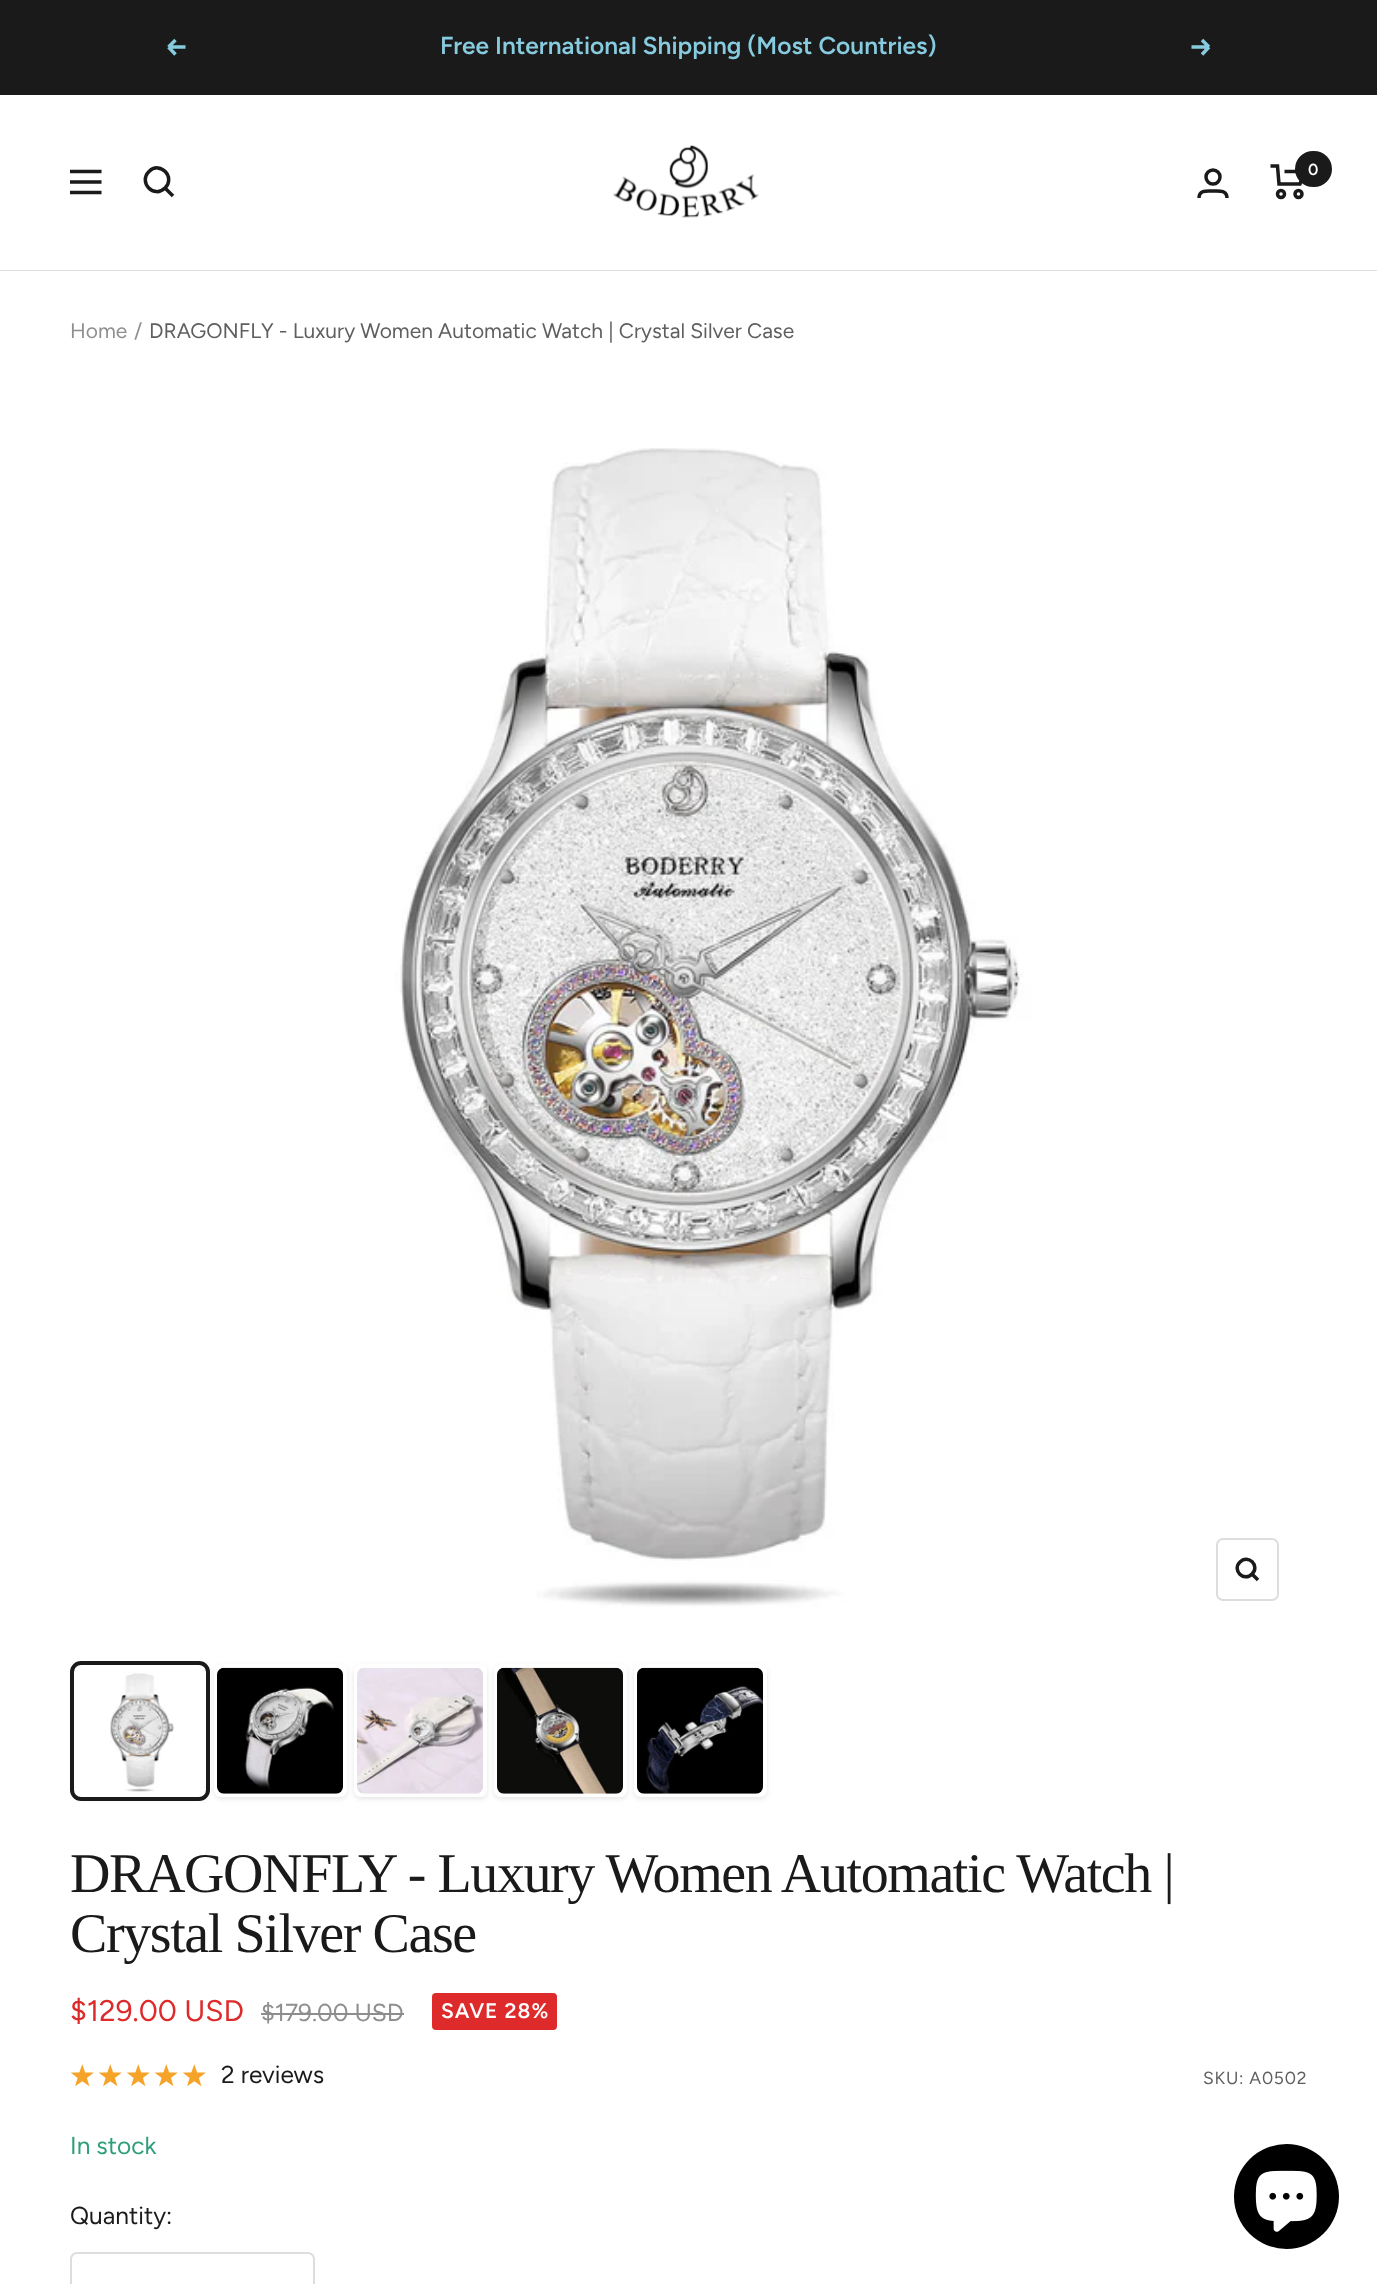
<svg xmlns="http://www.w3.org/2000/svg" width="1377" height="2284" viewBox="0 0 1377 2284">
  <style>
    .t1 { font: 600 24.5px Figtree; fill: #87cbdf; }
    .t2 { font: 600 16px Figtree; fill: #fff; }
    .t3 { font: 21px Figtree; fill: #8f8f8f; }
    .t4 { font: 21px Figtree; fill: #5f5f5f; }
    .t5 { font: 56px Liberation Serif; letter-spacing: -1.4px; fill: #1a1a1a; }
    .t6 { font: 29.75px Figtree; fill: #de2a2a; }
    .t7 { font: 24.5px Figtree; fill: #8f8f8f; }
    .t8 { font: 600 21px Figtree; letter-spacing: 1px; fill: #fff; }
    .t9 { font: 24.5px Figtree; fill: #1a1a1a; }
    .t10 { font: 17.5px Figtree; letter-spacing: 0.75px; fill: #5f5f5f; }
    .t11 { font: 24.5px Figtree; fill: #2e9e7b; }
  </style>
  <defs>
    <clipPath id="clip1"><path d="M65 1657H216V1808H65ZM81 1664H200C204 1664 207 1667 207 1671V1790C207 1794 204 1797 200 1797H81C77 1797 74 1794 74 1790V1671C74 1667 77 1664 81 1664Z" clip-rule="evenodd"/></clipPath>
    <clipPath id="clip2"><path d="M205 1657H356V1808H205ZM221 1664H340C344 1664 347 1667 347 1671V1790C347 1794 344 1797 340 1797H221C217 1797 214 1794 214 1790V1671C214 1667 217 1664 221 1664Z" clip-rule="evenodd"/></clipPath>
    <clipPath id="clip3"><path d="M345 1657H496V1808H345ZM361 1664H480C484 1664 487 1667 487 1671V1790C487 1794 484 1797 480 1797H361C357 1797 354 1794 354 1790V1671C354 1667 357 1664 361 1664Z" clip-rule="evenodd"/></clipPath>
    <clipPath id="clip4"><path d="M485 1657H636V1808H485ZM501 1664H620C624 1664 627 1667 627 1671V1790C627 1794 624 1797 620 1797H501C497 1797 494 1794 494 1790V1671C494 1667 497 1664 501 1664Z" clip-rule="evenodd"/></clipPath>
    <clipPath id="clip5"><path d="M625 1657H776V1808H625ZM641 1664H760C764 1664 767 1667 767 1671V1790C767 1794 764 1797 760 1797H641C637 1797 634 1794 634 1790V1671C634 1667 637 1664 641 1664Z" clip-rule="evenodd"/></clipPath>
  </defs>
  <rect width="100%" height="100%" fill="#fff"/>
  <rect x="0" y="0" width="1377" height="95" fill="#1a1a1a"/>
  <path d="M185.5 47H168.5M168.5 47L175.5 54.5M168.5 47L175.5 40" fill="none" stroke="#87cbdf" stroke-width="3.5"/>
  <text x="440" y="54" class="t1">Free International Shipping (Most Countries)</text>
  <path d="M1191.5 47H1209M1209 47L1202 54.5M1209 47L1202 40" fill="none" stroke="#87cbdf" stroke-width="3.5"/>
  <rect x="0" y="270" width="1377" height="1" fill="#ddd"/>
  <path d="M70 171.5H101.5M70 192.5H101.5ZM70 182H101.5Z" fill="none" stroke="#1a1a1a" stroke-width="3.5"/>
  <path d="M165 188C176 177 160 160.5 149 171.5C138 182.5 154 199 165 188ZM165 188L173 196" fill="none" stroke="#1a1a1a" stroke-width="3.5"/>
  <image x="613" y="145" width="146" height="73" href="images/1.png"/>
  <circle cx="1213" cy="177" r="7" fill="none" stroke="#1a1a1a" stroke-width="3.5"/>
  <path d="M1199 198C1199 189.5 1207.5 191 1213 191C1218 191 1227 189.5 1227 198" fill="none" stroke="#1a1a1a" stroke-width="3.5"/>
  <path d="M1270.5 166H1277.5L1279 184H1300L1304 171.5H1284.5" fill="none" stroke="#1a1a1a" stroke-width="3.5"/>
  <circle cx="1281" cy="194" r="3.5" fill="none" stroke="#1a1a1a" stroke-width="3.5"/>
  <circle cx="1298.5" cy="194" r="3.5" fill="none" stroke="#1a1a1a" stroke-width="3.5"/>
  <rect x="1295" y="151" width="37" height="36" rx="18" fill="#1a1a1a"/>
  <text x="1308" y="175" class="t2">0</text>
  <text x="70" y="338" class="t3">Home</text>
  <text x="134" y="338" class="t3">/</text>
  <text x="149" y="338" class="t4">DRAGONFLY - Luxury Women Automatic Watch | Crystal Silver Case</text>
  <image x="70" y="392" width="1237" height="1237" href="images/2.png"/>
  <rect x="1217" y="1539" width="61" height="61" rx="6" fill="none" stroke="#ddd" stroke-width="2"/>
  <path d="M1252 1574C1260.5 1566 1248 1553.5 1240 1562C1231.5 1570 1244 1582.5 1252 1574ZM1252 1574L1258 1580" fill="none" stroke="#1a1a1a" stroke-width="3.5"/>
  <g clip-path="url(#clip1)">
    <rect x="74" y="1666" width="133" height="133" rx="7" fill="#0000001a" filter="blur(2.5px)"/>
  </g>
  <image x="110" y="1672" width="64" height="120" href="images/3.png"/>
  <rect x="72" y="1663" width="136" height="136" rx="9" fill="none" stroke="#1a1a1a" stroke-width="4"/>
  <g clip-path="url(#clip2)">
    <rect x="214" y="1666" width="133" height="133" rx="7" fill="#0000001a" filter="blur(2.5px)"/>
  </g>
  <image x="217" y="1667" width="126" height="127" href="images/4.png"/>
  <g clip-path="url(#clip3)">
    <rect x="354" y="1666" width="133" height="133" rx="7" fill="#0000001a" filter="blur(2.5px)"/>
  </g>
  <image x="357" y="1668" width="126" height="126" href="images/5.png"/>
  <g clip-path="url(#clip4)">
    <rect x="494" y="1666" width="133" height="133" rx="7" fill="#0000001a" filter="blur(2.5px)"/>
  </g>
  <image x="497" y="1667" width="126" height="127" href="images/6.png"/>
  <g clip-path="url(#clip5)">
    <rect x="634" y="1666" width="133" height="133" rx="7" fill="#0000001a" filter="blur(2.5px)"/>
  </g>
  <image x="637" y="1667" width="126" height="127" href="images/7.png"/>
  <text x="70" y="1892" class="t5">DRAGONFLY - Luxury Women Automatic Watch |</text>
  <text x="70" y="1952" class="t5">Crystal Silver Case</text>
  <text x="70" y="2021" class="t6">$129.00 USD</text>
  <text x="261" y="2021" class="t7">$179.00 USD</text>
  <rect x="261" y="2013" width="143" height="2" fill="#8d8d8d"/>
  <rect x="432" y="1993" width="125" height="37" rx="4" fill="#de2a2a"/>
  <text x="441" y="2018" class="t8">SAVE 28%</text>
  <image x="70" y="2064" width="24" height="23" href="images/8.png"/>
  <image x="98" y="2064" width="24" height="23" href="images/8.png"/>
  <image x="126" y="2064" width="24" height="23" href="images/8.png"/>
  <image x="154" y="2064" width="24" height="23" href="images/8.png"/>
  <image x="182" y="2064" width="24" height="23" href="images/8.png"/>
  <text x="221" y="2083" class="t9">2 reviews</text>
  <text x="1203" y="2084" class="t10">SKU: A0502</text>
  <text x="70" y="2154" class="t11">In stock</text>
  <text x="70" y="2224" class="t9">Quantity:</text>
  <rect x="71" y="2253" width="243" height="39" rx="6" fill="none" stroke="#ddd" stroke-width="2"/>
  <circle cx="1286.5" cy="2196.5" r="52.5" fill="#000"/>
  <image x="1255" y="2170" width="62" height="62" href="images/9.png"/>
</svg>
